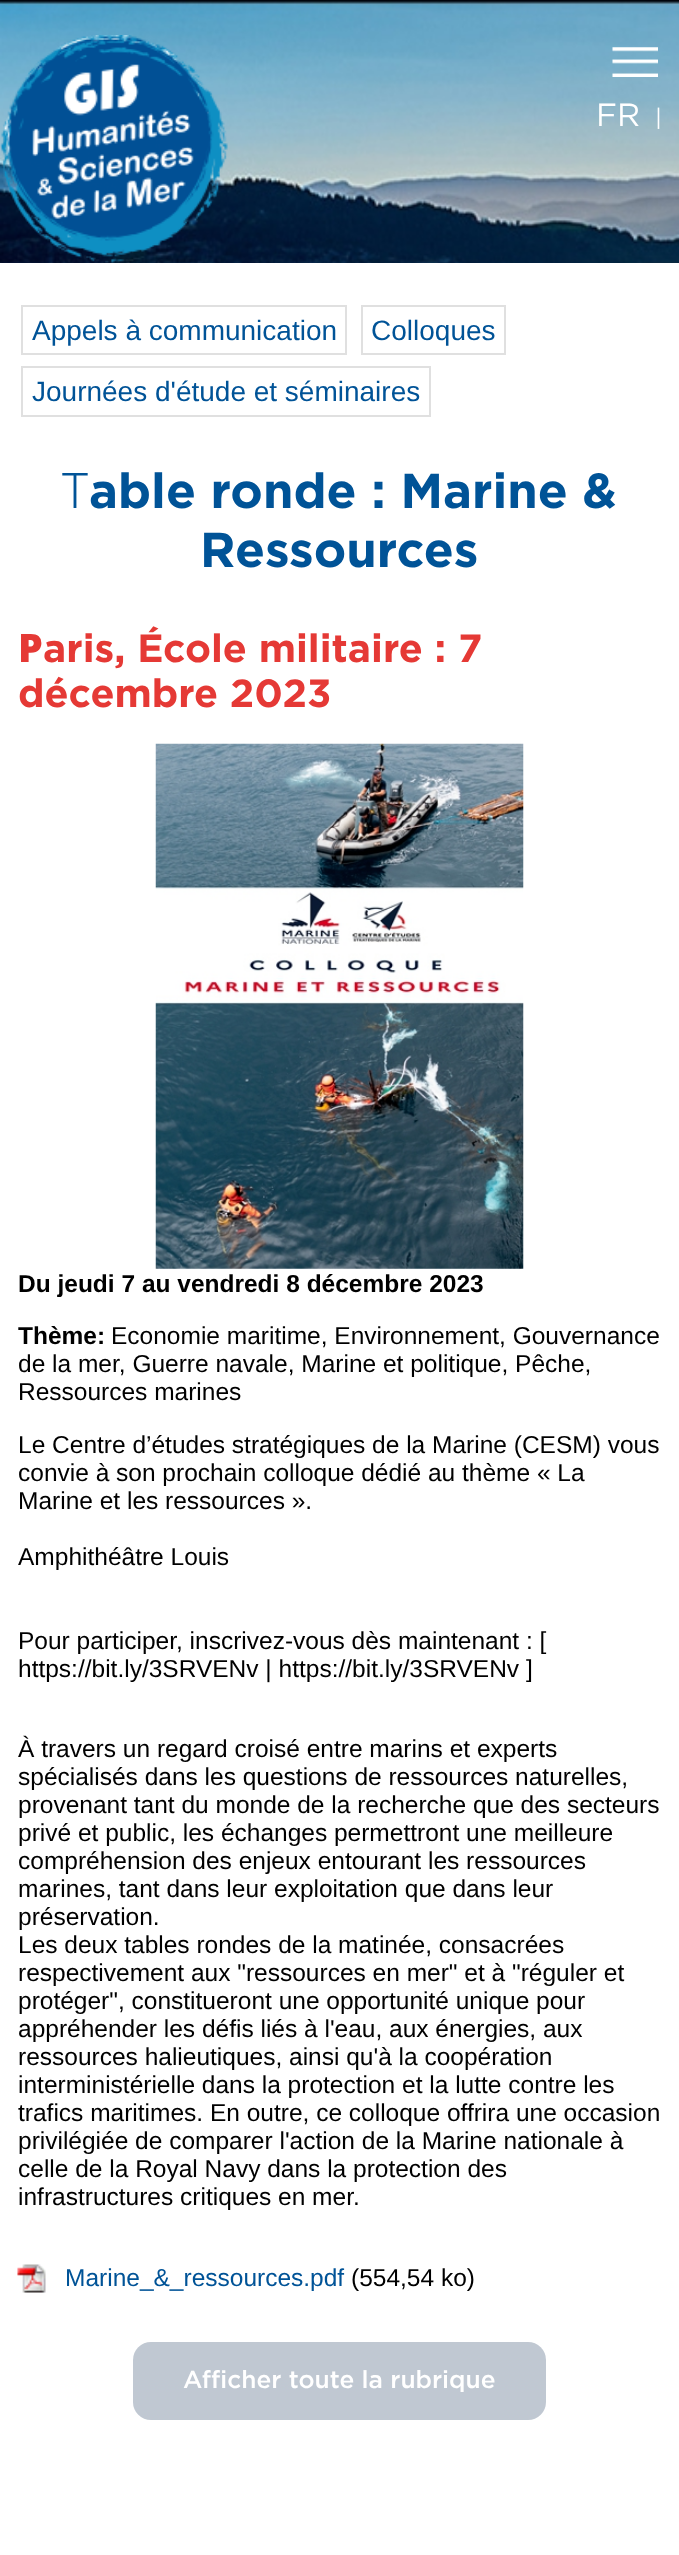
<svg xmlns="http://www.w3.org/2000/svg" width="679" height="2555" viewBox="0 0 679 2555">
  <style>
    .t1 { font: 32px Gotham; fill: #fff; }
    .t2 { font: 23px Gotham; fill: #fff; }
    .t3 { font: 28px Liberation Sans; fill: #005397; }
    .t4 { font: 300 49px Noto Sans; fill: #005397; }
    .t5 { font: bold 49px Gotham; fill: #005397; }
    .t6 { font: 900 39.25px Noto Sans; fill: #e53935; }
    .t7 { font: bold 39.25px Gotham; fill: #e53935; }
    .t8 { font: bold 24.5px Liberation Sans; fill: #000; }
    .t9 { font: 24.5px Liberation Sans; fill: #000; }
    .t10 { font: 24.5px Liberation Sans; fill: #005397; }
    .t11 { font: 500 24.5px Gotham; fill: #fff; }
  </style>
  <rect width="100%" height="100%" fill="#fff"/>
  <image x="0" y="0" width="679" height="263" href="images/1.png"/>
  <image x="0" y="35" width="228" height="228" href="images/2.png"/>
  <image x="612" y="47" width="46" height="30" href="images/3.png"/>
  <text x="596" y="126" class="t1">FR</text>
  <text x="655" y="126" class="t2">|</text>
  <rect x="22" y="306" width="324" height="48" fill="none" stroke="#e0e0e0" stroke-width="2"/>
  <text x="32" y="340" class="t3">Appels à communication</text>
  <rect x="362" y="306" width="143" height="48" fill="none" stroke="#e0e0e0" stroke-width="2"/>
  <text x="371" y="340" class="t3">Colloques</text>
  <rect x="22" y="367" width="408" height="49" fill="none" stroke="#e0e0e0" stroke-width="2"/>
  <text x="32" y="401" class="t3">Journées d'étude et séminaires</text>
  <text x="62" y="508" class="t4">T</text>
  <text x="89" y="508" class="t5">able ronde : Marine &amp;</text>
  <text x="200" y="567" class="t5">Ressources</text>
  <text x="18" y="662" class="t6">P</text>
  <text x="43" y="662" class="t7">aris, École militaire : 7</text>
  <text x="18" y="707" class="t7">décembre 2023</text>
  <image x="155" y="743" width="369" height="526" href="images/4.png"/>
  <text x="18" y="1292" class="t8">Du jeudi 7 au vendredi 8 décembre 2023</text>
  <text x="18" y="1344" class="t8">Thème:</text>
  <text x="111" y="1344" class="t9">Economie maritime, Environnement, Gouvernance</text>
  <text x="18" y="1372" class="t9">de la mer, Guerre navale, Marine et politique, Pêche,</text>
  <text x="18" y="1400" class="t9">Ressources marines</text>
  <text x="18" y="1453" class="t9">Le Centre d’études stratégiques de la Marine (CESM) vous</text>
  <text x="18" y="1481" class="t9">convie à son prochain colloque dédié au thème « La</text>
  <text x="18" y="1509" class="t9">Marine et les ressources ».</text>
  <text x="18" y="1565" class="t9">Amphithéâtre Louis</text>
  <text x="18" y="1649" class="t9">Pour participer, inscrivez-vous dès maintenant : [</text>
  <text x="18" y="1677" class="t9">https://bit.ly/3SRVENv | https://bit.ly/3SRVENv ]</text>
  <text x="18" y="1757" class="t9">À travers un regard croisé entre marins et experts</text>
  <text x="18" y="1785" class="t9">spécialisés dans les questions de ressources naturelles,</text>
  <text x="18" y="1813" class="t9">provenant tant du monde de la recherche que des secteurs</text>
  <text x="18" y="1841" class="t9">privé et public, les échanges permettront une meilleure</text>
  <text x="18" y="1869" class="t9">compréhension des enjeux entourant les ressources</text>
  <text x="18" y="1897" class="t9">marines, tant dans leur exploitation que dans leur</text>
  <text x="18" y="1925" class="t9">préservation.</text>
  <text x="18" y="1953" class="t9">Les deux tables rondes de la matinée, consacrées</text>
  <text x="18" y="1981" class="t9">respectivement aux "ressources en mer" et à "réguler et</text>
  <text x="18" y="2009" class="t9">protéger", constitueront une opportunité unique pour</text>
  <text x="18" y="2037" class="t9">appréhender les défis liés à l'eau, aux énergies, aux</text>
  <text x="18" y="2065" class="t9">ressources halieutiques, ainsi qu'à la coopération</text>
  <text x="18" y="2093" class="t9">interministérielle dans la protection et la lutte contre les</text>
  <text x="18" y="2121" class="t9">trafics maritimes. En outre, ce colloque offrira une occasion</text>
  <text x="18" y="2149" class="t9">privilégiée de comparer l'action de la Marine nationale à</text>
  <text x="18" y="2177" class="t9">celle de la Royal Navy dans la protection des</text>
  <text x="18" y="2205" class="t9">infrastructures critiques en mer.</text>
  <image x="17" y="2264" width="29" height="29" href="images/5.png"/>
  <text x="65" y="2286" class="t10">Marine_&amp;_ressources.pdf</text>
  <text x="351" y="2286" class="t9">(554,54 ko)</text>
  <rect x="133" y="2342" width="413" height="78" rx="18" fill="#c0c8d2"/>
  <text x="183" y="2388" class="t11">Afficher toute la rubrique</text>
</svg>
